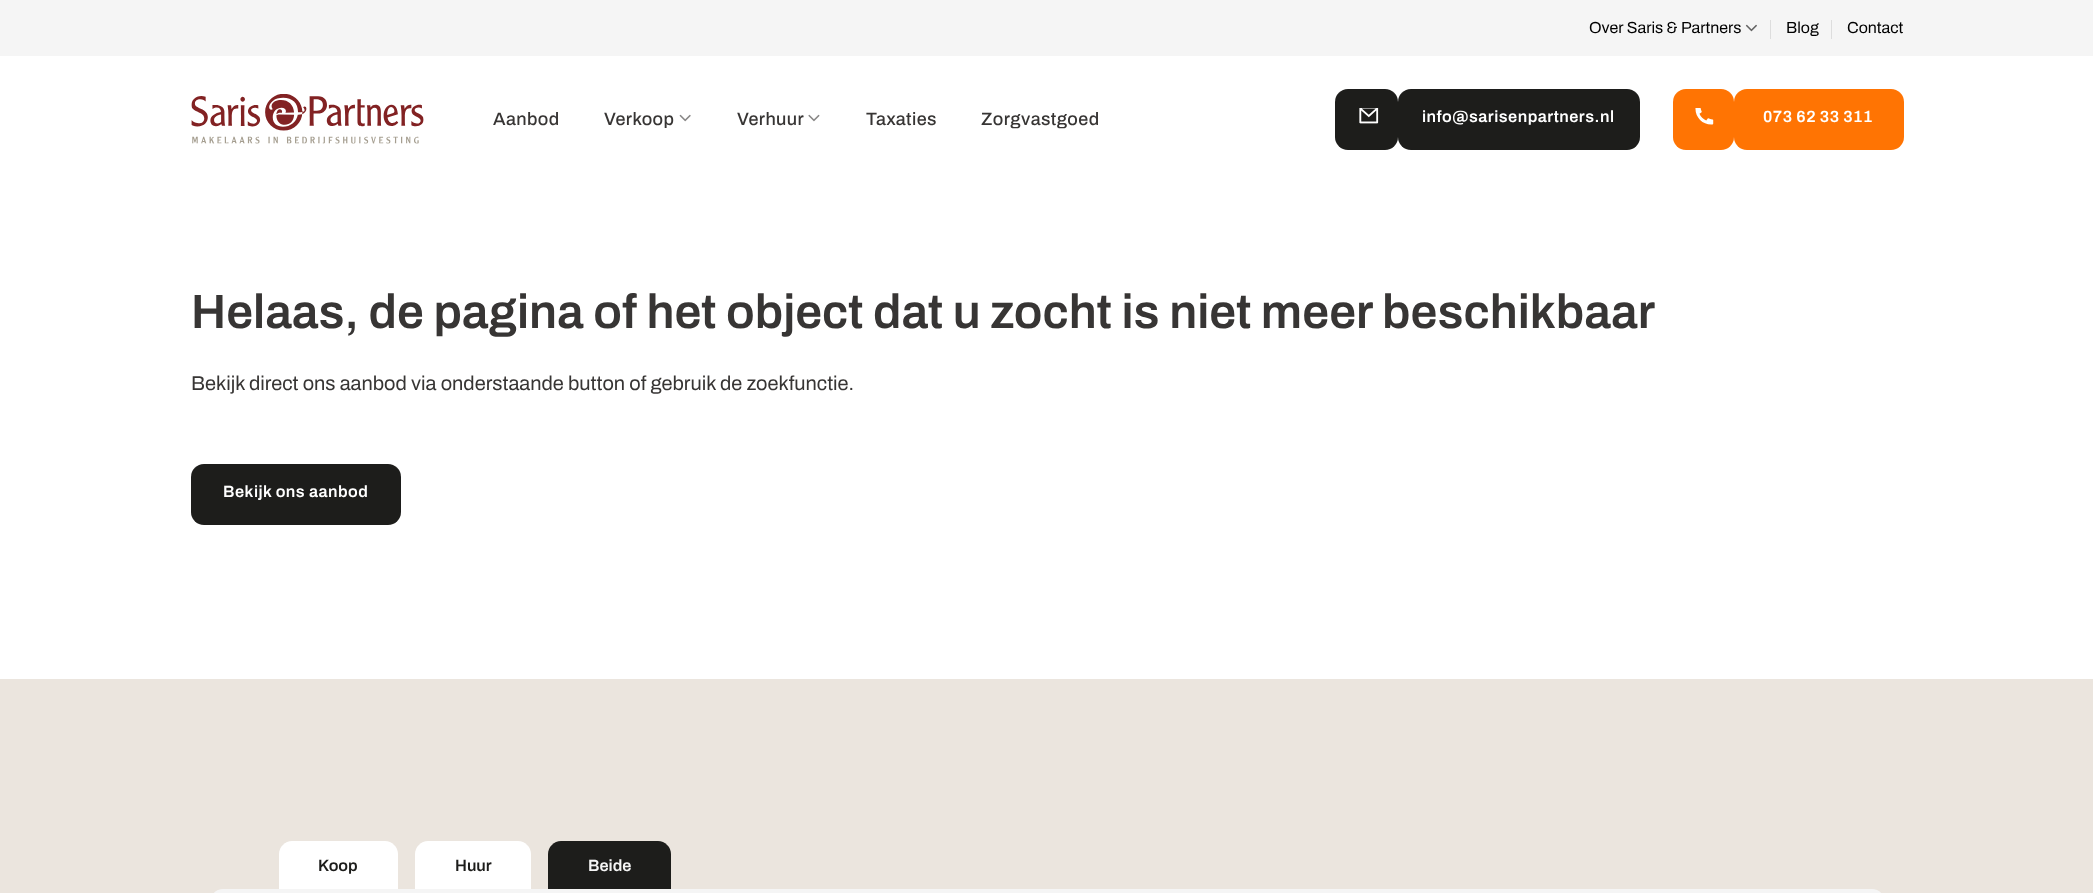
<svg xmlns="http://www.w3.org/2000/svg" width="2093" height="893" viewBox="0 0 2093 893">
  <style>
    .t1 { font: 16px Archivo; fill: #000; }
    .t2 { font: 500 18px Archivo; letter-spacing: 0.4px; fill: #373534; }
    .t3 { font: 600 16.25px Archivo; letter-spacing: 0.5px; fill: #fff; }
    .t4 { font: 600 48px Archivo; fill: #373534; }
    .t5 { font: 20px Archivo; fill: #373534; }
    .t6 { font: 600 16.25px Archivo; fill: #1d1d1b; }
    .t7 { font: 600 16.25px Archivo; fill: #f5f5f5; }
  </style>
  <rect width="100%" height="100%" fill="#fff"/>
  <rect x="0" y="0" width="2093" height="56" fill="#f5f5f5"/>
  <text x="1589" y="33" class="t1">Over Saris &amp; Partners</text>
  <image x="1745" y="24" width="12" height="8" href="images/1.png"/>
  <rect x="1770" y="20" width="1" height="19" fill="#ddd"/>
  <text x="1786" y="33" class="t1">Blog</text>
  <rect x="1831" y="20" width="1" height="19" fill="#ddd"/>
  <text x="1847" y="33" class="t1">Contact</text>
  <image x="191" y="94" width="233" height="50" href="images/2.png"/>
  <text x="493" y="125" class="t2">Aanbod</text>
  <text x="604" y="125" class="t2">Verkoop</text>
  <image x="679" y="114" width="12" height="8" href="images/3.png"/>
  <text x="737" y="125" class="t2">Verhuur</text>
  <image x="808" y="114" width="12" height="8" href="images/4.png"/>
  <text x="866" y="125" class="t2">Taxaties</text>
  <text x="981" y="125" class="t2">Zorgvastgoed</text>
  <rect x="1335" y="89" width="63" height="61" rx="13" fill="#1d1d1b"/>
  <image x="1359" y="108" width="20" height="16" href="images/5.png"/>
  <rect x="1398" y="89" width="242" height="61" rx="13" fill="#1d1d1b"/>
  <text x="1422" y="122" class="t3">info@sarisenpartners.nl</text>
  <rect x="1673" y="89" width="61" height="61" rx="13" fill="#ff7403"/>
  <image x="1695" y="108" width="19" height="17" href="images/6.png"/>
  <rect x="1734" y="89" width="170" height="61" rx="13" fill="#ff7403"/>
  <text x="1763" y="122" class="t3">073 62 33 311</text>
  <text x="191" y="328" class="t4">Helaas, de pagina of het object dat u zocht is niet meer beschikbaar</text>
  <text x="191" y="390" class="t5">Bekijk direct ons aanbod via onderstaande button of gebruik de zoekfunctie.</text>
  <rect x="191" y="464" width="210" height="61" rx="13" fill="#1d1d1b"/>
  <text x="223" y="497" class="t3">Bekijk ons aanbod</text>
  <rect x="0" y="679" width="2093" height="214" fill="#ebe5de"/>
  <path d="M292 841H385C392 841 398 847 398 854V889H279V854C279 847 285 841 292 841Z" fill="#fff"/>
  <text x="318" y="871" class="t6">Koop</text>
  <path d="M428 841H518C525 841 531 847 531 854V889H415V854C415 847 421 841 428 841Z" fill="#fff"/>
  <text x="455" y="871" class="t6">Huur</text>
  <path d="M561 841H658C665 841 671 847 671 854V889H548V854C548 847 554 841 561 841Z" fill="#1d1d1b"/>
  <text x="588" y="871" class="t7">Beide</text>
  <path d="M223 889H1566V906H223C216 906 210 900 210 893V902C210 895 216 889 223 889Z" fill="#f5f5f5"/>
  <path d="M1566 889H1872C1879 889 1885 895 1885 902V893C1885 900 1879 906 1872 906H1566Z" fill="#f5f5f5"/>
</svg>
